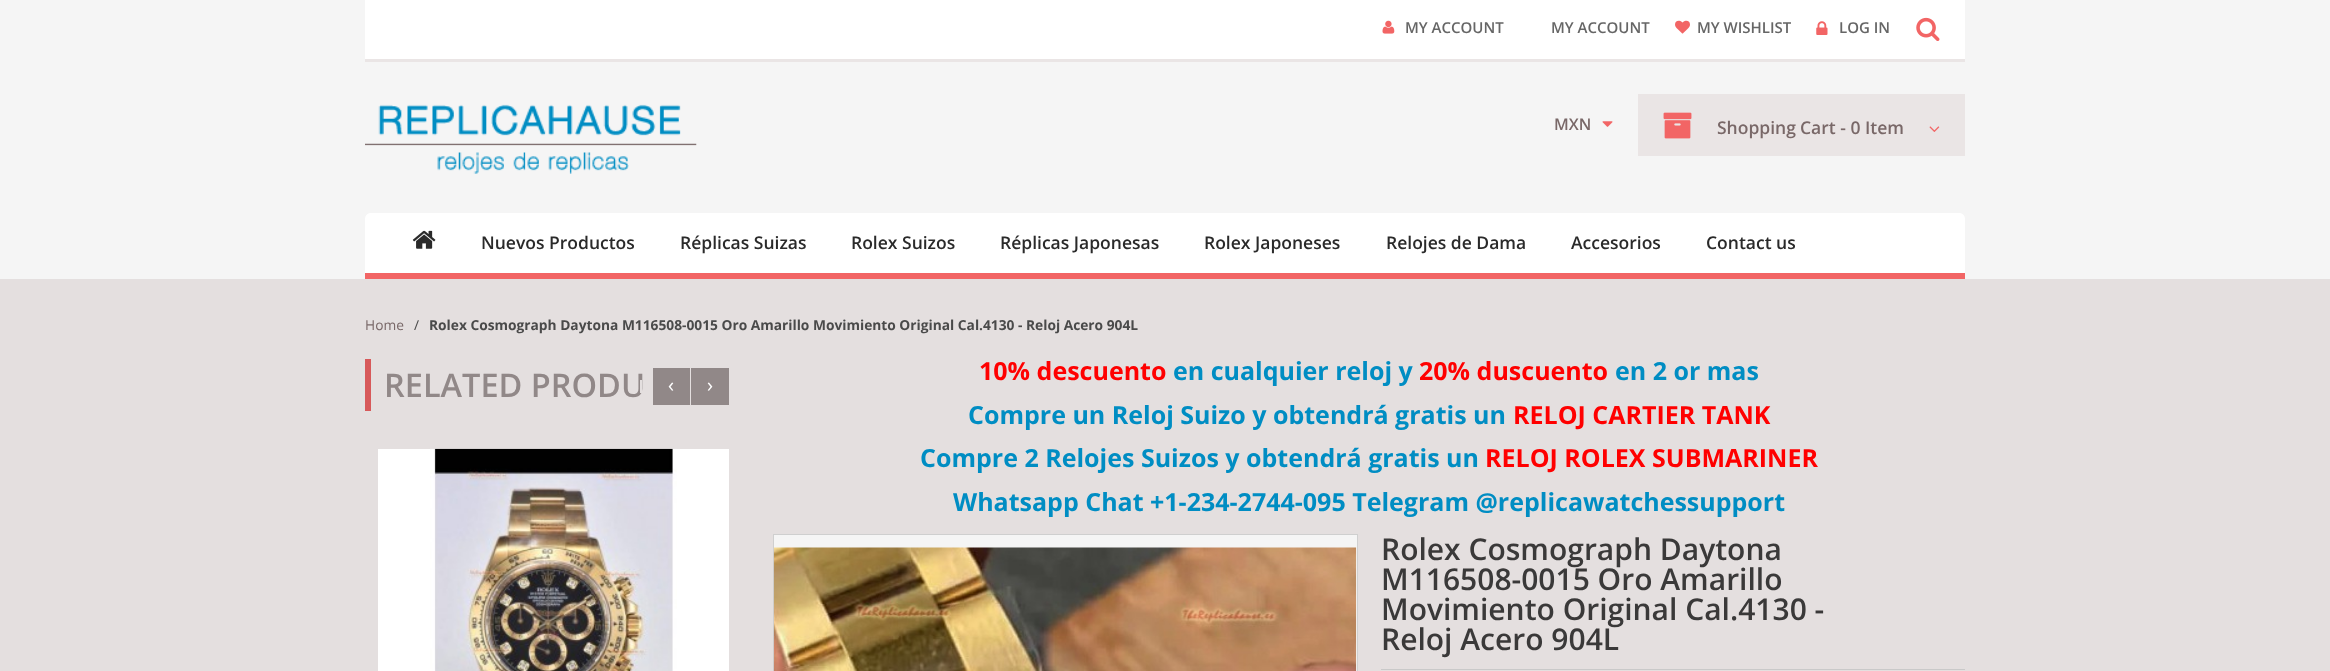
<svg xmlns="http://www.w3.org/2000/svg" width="2330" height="671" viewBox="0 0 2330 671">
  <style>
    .t1 { font: 600 15px Open Sans; fill: #666; }
    .t2 { font: 600 16px Open Sans; fill: #796868; }
    .t3 { font: 600 17.5px Open Sans; fill: #796868; }
    .t4 { font: 600 17.5px Open Sans; fill: #2a2a2a; }
    .t5 { font: 13.75px Open Sans; fill: #796868; }
    .t6 { font: 13.75px Open Sans; fill: #4a4a4a; }
    .t7 { font: bold 13.75px Open Sans; fill: #4a4a4a; }
    .t8 { font: 600 32.5px Open Sans; fill: #918888; }
    .t9 { font: 20px Open Sans; fill: #fff; }
    .t10 { font: bold 25px Open Sans; fill: #f00; }
    .t11 { font: bold 25px Open Sans; fill: #008dc3; }
    .t12 { font: 600 30px Open Sans; fill: #3a3939; }
  </style>
  <rect width="100%" height="100%" fill="#e4dfdf"/>
  <rect x="0" y="0" width="2330" height="279" fill="#f5f5f5"/>
  <rect x="365" y="0" width="1600" height="59" fill="#fff"/>
  <rect x="365" y="59" width="1600" height="3" fill="#eae5e5"/>
  <image x="1382" y="20" width="13" height="14" href="images/1.png"/>
  <text x="1405" y="33" class="t1">MY ACCOUNT</text>
  <text x="1551" y="33" class="t1">MY ACCOUNT</text>
  <image x="1675" y="20" width="15" height="14" href="images/2.png"/>
  <text x="1697" y="33" class="t1">MY WISHLIST</text>
  <image x="1816" y="21" width="12" height="14" href="images/3.png"/>
  <text x="1839" y="33" class="t1">LOG IN</text>
  <image x="1916" y="17" width="24" height="24" href="images/4.png"/>
  <image x="365" y="104" width="332" height="70" href="images/5.png"/>
  <text x="1554" y="130" class="t2">MXN</text>
  <image x="1602" y="121" width="11" height="6" href="images/6.png"/>
  <rect x="1638" y="94" width="327" height="62" fill="#eae5e5"/>
  <image x="1663" y="112" width="29" height="27" href="images/7.png"/>
  <text x="1717" y="134" class="t3">Shopping</text>
  <text x="1800" y="134" class="t3">Cart - 0 Item</text>
  <image x="1929" y="126" width="11" height="6" href="images/8.png"/>
  <path d="M371 213H1959C1962.5 213 1965 215.5 1965 219V279H365V219C365 215.5 367.5 213 371 213Z" fill="#fff"/>
  <rect x="365" y="273" width="1600" height="6" fill="#f26565"/>
  <image x="412" y="230" width="24" height="19" href="images/9.png"/>
  <text x="481" y="249" class="t4">Nuevos Productos</text>
  <text x="680" y="249" class="t4">Réplicas Suizas</text>
  <text x="851" y="249" class="t4">Rolex Suizos</text>
  <text x="1000" y="249" class="t4">Réplicas Japonesas</text>
  <text x="1204" y="249" class="t4">Rolex Japoneses</text>
  <text x="1386" y="249" class="t4">Relojes de Dama</text>
  <text x="1571" y="249" class="t4">Accesorios</text>
  <text x="1706" y="249" class="t4">Contact us</text>
  <text x="365" y="330" class="t5">Home</text>
  <text x="414" y="330" class="t6">/</text>
  <text x="429" y="330" class="t7">Rolex Cosmograph Daytona M116508-0015 Oro Amarillo Movimiento Original Cal.4130 - Reloj Acero 904L</text>
  <rect x="365" y="359" width="6" height="52" fill="#d7595a"/>
  <text x="384" y="397" class="t8">RELATED PRODU</text>
  <rect x="653" y="368" width="37" height="37" fill="#918888"/>
  <rect x="640" y="380" width="2" height="13" fill="#e4dfdf"/>
  <text x="668" y="392" class="t9">‹</text>
  <rect x="691" y="368" width="38" height="37" fill="#918888"/>
  <text x="707" y="392" class="t9">›</text>
  <rect x="378" y="449" width="351" height="222" fill="#fff"/>
  <image x="430" y="448" width="247" height="223" href="images/10.png"/>
  <text x="979" y="380" class="t10">10% descuento</text>
  <text x="1173" y="380" class="t11">en cualquier reloj y</text>
  <text x="1419" y="380" class="t10">20% duscuento</text>
  <text x="1615" y="380" class="t11">en 2 or mas</text>
  <text x="968" y="424" class="t11">Compre un Reloj Suizo y obtendrá gratis un</text>
  <text x="1513" y="424" class="t10">RELOJ CARTIER TANK</text>
  <text x="920" y="467" class="t11">Compre 2 Relojes Suizos y obtendrá gratis un</text>
  <text x="1485" y="467" class="t10">RELOJ ROLEX SUBMARINER</text>
  <text x="953" y="511" class="t11">Whatsapp Chat +1-234-2744-095 Telegram @replicawatchessupport</text>
  <rect x="773.5" y="534.5" width="584" height="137" fill="#f5f5f5" stroke="#cfcfcf"/>
  <image x="773" y="547" width="584" height="124" href="images/11.png"/>
  <rect x="1381" y="669" width="584" height="1" fill="#c9c9c9"/>
  <text x="1381" y="560" class="t12">Rolex Cosmograph Daytona</text>
  <text x="1381" y="590" class="t12">M116508-0015 Oro Amarillo</text>
  <text x="1381" y="620" class="t12">Movimiento Original Cal.4130 -</text>
  <text x="1381" y="650" class="t12">Reloj Acero 904L</text>
</svg>
